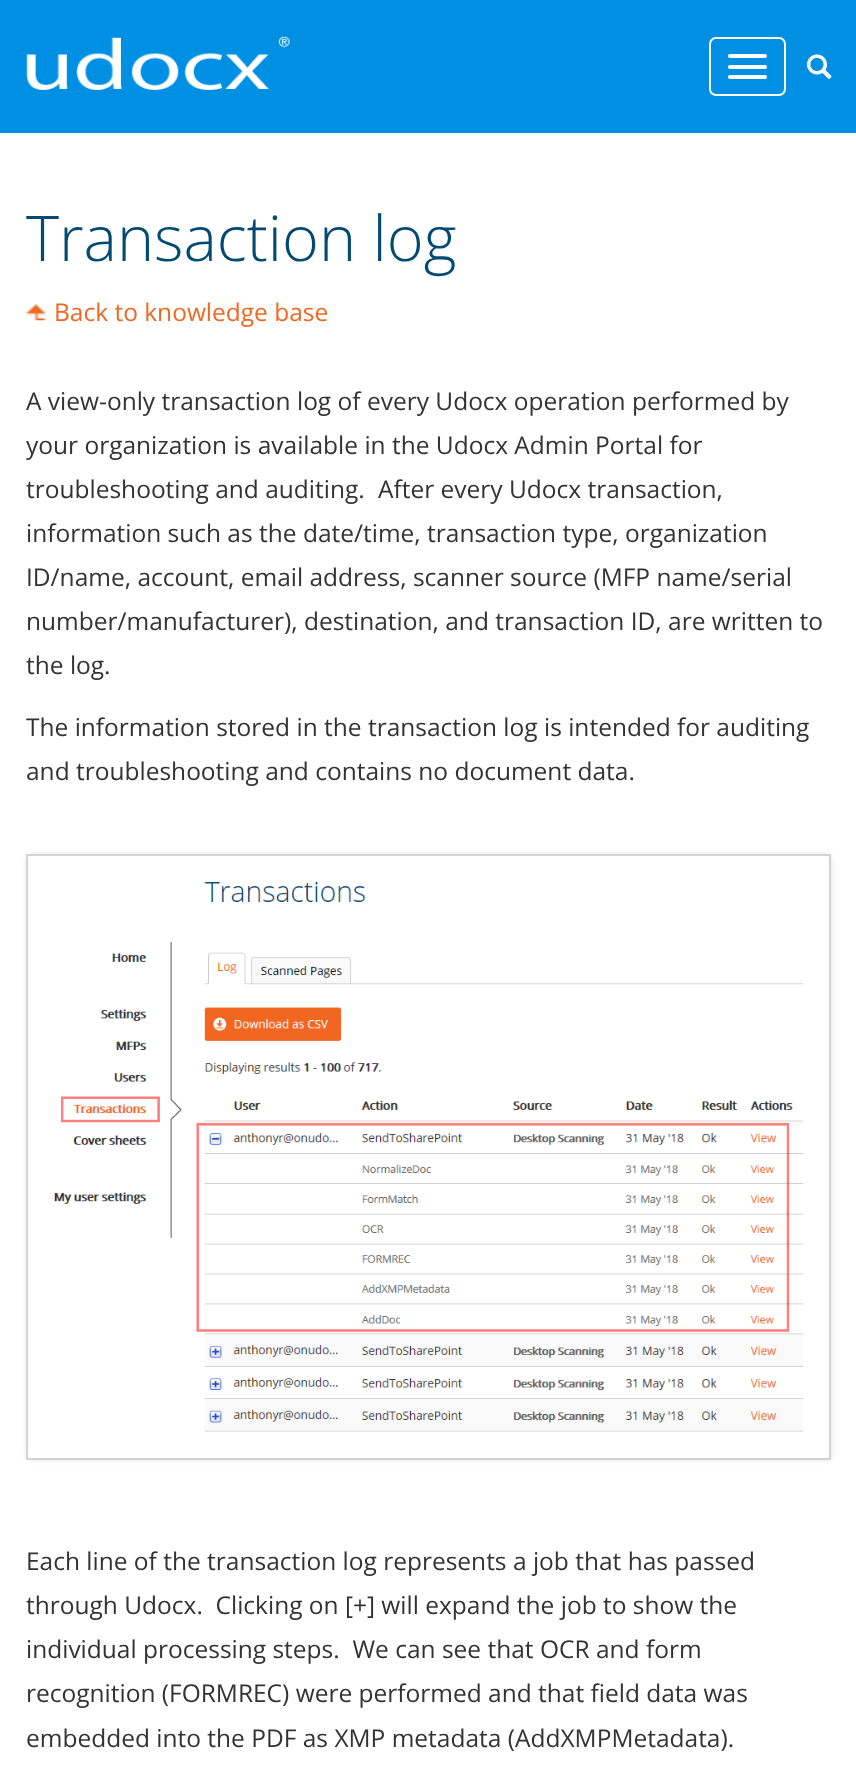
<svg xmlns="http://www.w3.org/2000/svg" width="856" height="1773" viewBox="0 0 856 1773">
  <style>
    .t1 { font: 300 63px Open Sans; fill: #034a72; }
    .t2 { font: 24.5px Open Sans; fill: #f16722; }
    .t3 { font: 24.5px Open Sans; fill: #333; }
  </style>
  <defs>
    <clipPath id="clip1"><path d="M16 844H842V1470H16ZM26 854H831V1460H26Z" clip-rule="evenodd"/></clipPath>
  </defs>
  <rect width="100%" height="100%" fill="#fff"/>
  <rect x="0" y="0" width="856" height="133" fill="#0090e3"/>
  <image x="26" y="36" width="264" height="54" href="images/1.png"/>
  <rect x="710" y="38" width="75" height="57" rx="6" fill="none" stroke="#fff" stroke-width="2"/>
  <rect x="728" y="54" width="39" height="4" rx="2" fill="#fff"/>
  <rect x="728" y="65" width="39" height="4" rx="2" fill="#fff"/>
  <rect x="728" y="75" width="39" height="4" rx="2" fill="#fff"/>
  <image x="806" y="54" width="26" height="25" href="images/2.png"/>
  <text x="26" y="261" class="t1">Transaction log</text>
  <image x="26" y="304" width="20" height="17" href="images/3.png"/>
  <text x="54" y="321" class="t2">Back to knowledge base</text>
  <text x="26" y="410" class="t3">A view-only transaction log of every Udocx operation performed by</text>
  <text x="26" y="454" class="t3">your organization is available in the Udocx Admin Portal for</text>
  <text x="26" y="498" class="t3">troubleshooting and auditing.</text>
  <text x="378" y="498" class="t3">After every Udocx transaction,</text>
  <text x="26" y="542" class="t3">information such as the date/time, transaction type, organization</text>
  <text x="26" y="586" class="t3">ID/name, account, email address, scanner source (MFP name/serial</text>
  <text x="26" y="630" class="t3">number/manufacturer), destination, and transaction ID, are written to</text>
  <text x="26" y="674" class="t3">the log.</text>
  <text x="26" y="736" class="t3">The information stored in the transaction log is intended for auditing</text>
  <text x="26" y="780" class="t3">and troubleshooting and contains no document data.</text>
  <g clip-path="url(#clip1)">
    <rect x="28" y="856" width="802" height="602" fill="#d3d3d3" filter="blur(3.5px)"/>
  </g>
  <rect x="27" y="855" width="803" height="604" fill="none" stroke="#d3d3d3" stroke-width="2"/>
  <image x="54" y="882" width="750" height="550" href="images/4.png"/>
  <text x="26" y="1570" class="t3">Each line of the transaction log represents a job that has passed</text>
  <text x="26" y="1614" class="t3" xml:space="preserve">through Udocx.  Clicking on [+] will expand the job to show the</text>
  <text x="26" y="1658" class="t3" xml:space="preserve">individual processing steps.  We can see that OCR and form</text>
  <text x="26" y="1702" class="t3">recognition (FORMREC) were performed and that field data was</text>
  <text x="26" y="1747" class="t3">embedded into the PDF as XMP metadata (AddXMPMetadata).</text>
</svg>
